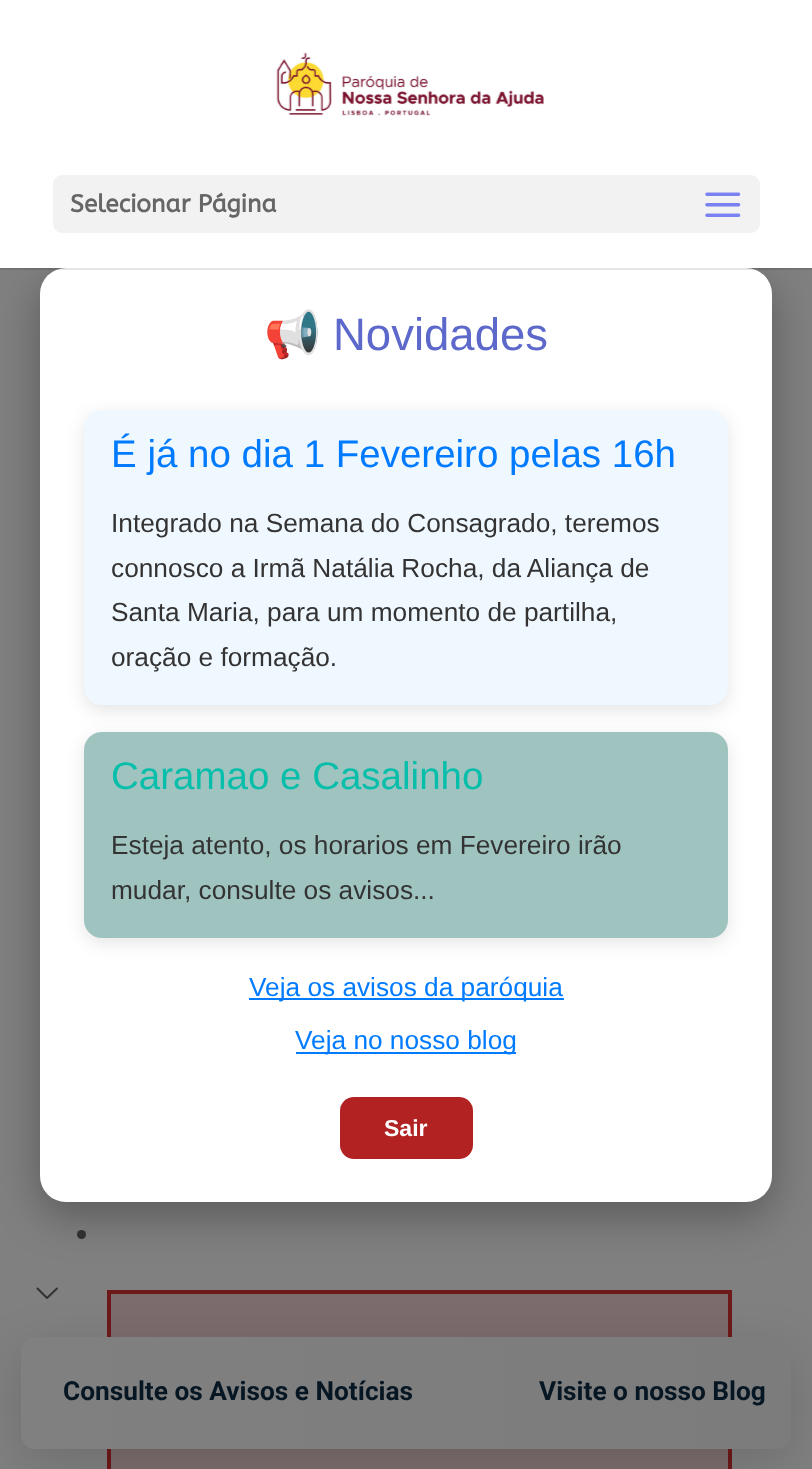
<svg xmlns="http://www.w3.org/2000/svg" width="812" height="1469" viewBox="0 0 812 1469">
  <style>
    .t1 { font: bold 24.5px ABeeZee; fill: #666; }
    .t2 { font: bold 26.25px Roboto; fill: #061622; }
    .t3 { font: 45.5px Noto Color Emoji; fill: #5d68cb; }
    .t4 { font: 45.5px Liberation Sans; fill: #5d68cb; }
    .t5 { font: 38.5px Liberation Sans; fill: #007bff; }
    .t6 { font: 26.25px Liberation Sans; fill: #333; }
    .t7 { font: 38.5px Liberation Sans; fill: #06bea9; }
    .t8 { font: 26.25px Liberation Sans; fill: #007bff; }
    .t9 { font: bold 23px Liberation Sans; fill: #fff; }
  </style>
  <defs>
    <linearGradient id="g1" gradientUnits="userSpaceOnUse" x1="21" y1="1393" x2="791" y2="1393"><stop offset="0" stop-color="#808080"/><stop offset="1" stop-color="#7c7c7d"/></linearGradient>
  </defs>
  <rect width="100%" height="100%" fill="#808080"/>
  <circle cx="81.5" cy="1234.5" r="4.5" fill="#333"/>
  <rect x="40" y="282" width="732" height="934" rx="26" fill="#0000004d" filter="blur(22px)"/>
  <rect x="40" y="268" width="732" height="934" rx="26" fill="#fff"/>
  <rect x="0" y="268" width="812" height="2" fill="#0000001a"/>
  <rect x="0" y="0" width="812" height="268" fill="#fff"/>
  <image x="276" y="52" width="268" height="64" href="images/1.png"/>
  <rect x="53" y="175" width="707" height="58" rx="9" fill="#f2f2f2"/>
  <text x="70" y="212" class="t1">Selecionar Página</text>
  <image x="705" y="192" width="36" height="25" href="images/2.png"/>
  <rect x="109" y="1292" width="621" height="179" fill="#7c6c6d" stroke="#6e1919" stroke-width="4"/>
  <rect x="21" y="1351" width="770" height="112" rx="14" fill="#00000024" filter="blur(24.5px)"/>
  <path d="M57 1288.5L47 1298L37.5 1288.5" fill="none" stroke="#333" stroke-width="2" stroke-linecap="round" stroke-linejoin="round"/>
  <rect x="21" y="1337" width="770" height="112" rx="14" fill="url(#g1)"/>
  <text x="63" y="1400" class="t2">Consulte os Avisos e Notícias</text>
  <text x="539" y="1400" class="t2">Visite o nosso Blog</text>
  <text x="264" y="350" class="t3">📢</text>
  <text x="333" y="350" class="t4">Novidades</text>
  <rect x="84" y="415" width="644" height="296" rx="18" fill="#0000001a" filter="blur(9px)"/>
  <rect x="84" y="410" width="644" height="295" rx="18" fill="#f0f8ff"/>
  <text x="111" y="467" class="t5">É já no dia 1 Fevereiro pelas 16h</text>
  <text x="111" y="532" class="t6">Integrado na Semana do Consagrado, teremos</text>
  <text x="111" y="577" class="t6">connosco a Irmã Natália Rocha, da Aliança de</text>
  <text x="111" y="621" class="t6">Santa Maria, para um momento de partilha,</text>
  <text x="111" y="666" class="t6">oração e formação.</text>
  <rect x="84" y="737" width="644" height="206" rx="18" fill="#0000001a" filter="blur(9px)"/>
  <rect x="84" y="732" width="644" height="206" rx="18" fill="#9fc4c0"/>
  <text x="111" y="789" class="t7">Caramao e Casalinho</text>
  <text x="111" y="854" class="t6">Esteja atento, os horarios em Fevereiro irão</text>
  <text x="111" y="899" class="t6">mudar, consulte os avisos...</text>
  <rect x="249" y="998" width="315" height="2" fill="#007bff"/>
  <text x="249" y="996" class="t8">Veja os avisos da paróquia</text>
  <rect x="296" y="1052" width="220" height="2" fill="#007bff"/>
  <text x="295" y="1049" class="t8">Veja no nosso blog</text>
  <rect x="340" y="1097" width="133" height="62" rx="14" fill="#b22222"/>
  <text x="384" y="1136" class="t9">Sair</text>
</svg>
